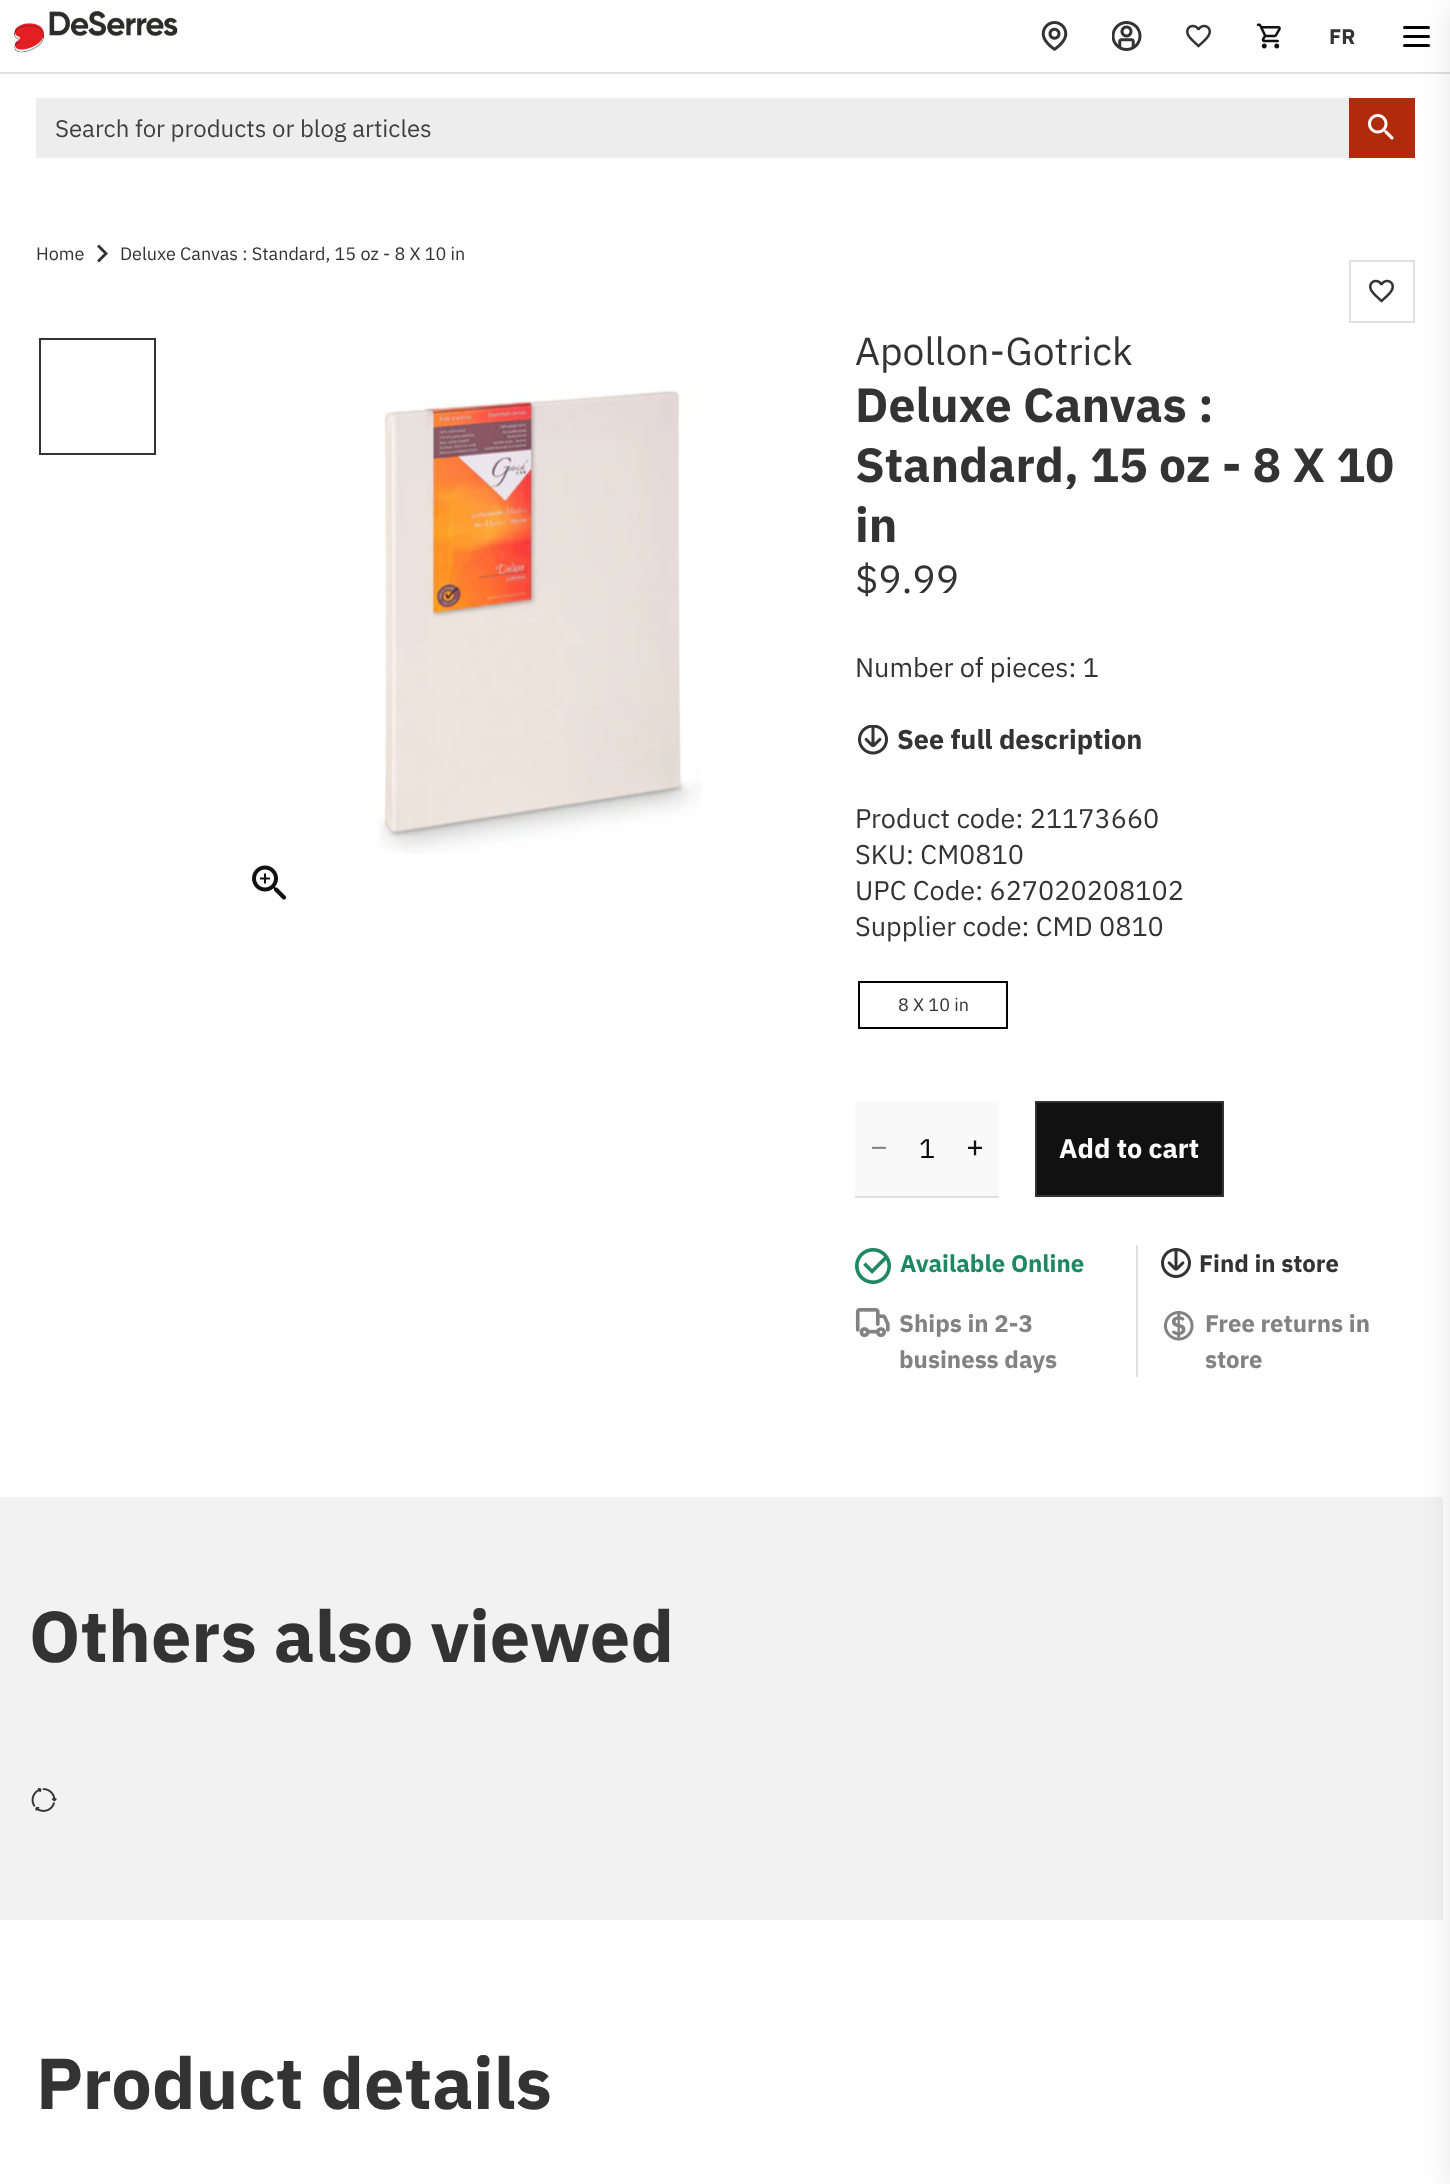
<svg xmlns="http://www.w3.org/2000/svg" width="1450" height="2184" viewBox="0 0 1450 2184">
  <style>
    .t1 { font: bold 21px IBM Plex Sans; fill: #333; }
    .t2 { font: 24px IBM Plex Sans; fill: #3f3f3f; }
    .t3 { font: 18px IBM Plex Sans; fill: #333; }
    .t4 { font: 39px IBM Plex Sans; fill: #333; }
    .t5 { font: bold 48px IBM Plex Sans; fill: #333; }
    .t6 { font: 27px IBM Plex Sans; fill: #333; }
    .t7 { font: bold 27px IBM Plex Sans; fill: #333; }
    .t8 { font: 30px IBM Plex Sans; fill: #828282; }
    .t9 { font: 27px IBM Plex Sans; fill: #000; }
    .t10 { font: 30px IBM Plex Sans; fill: #111; }
    .t11 { font: bold 27px IBM Plex Sans; fill: #fff; }
    .t12 { font: bold 24px IBM Plex Sans; fill: #1e8763; }
    .t13 { font: bold 24px IBM Plex Sans; fill: #333; }
    .t14 { font: bold 24px IBM Plex Sans; fill: #828282; }
    .t15 { font: bold 72px IBM Plex Sans; fill: #333; }
  </style>
  <rect width="100%" height="100%" fill="#fff"/>
  <rect x="0" y="72" width="1450" height="2" fill="#e0e0e0"/>
  <image x="13" y="11" width="165" height="42" href="images/1.png"/>
  <image x="1041" y="21" width="27" height="30" href="images/2.png"/>
  <image x="1112" y="21" width="30" height="30" href="images/3.png"/>
  <image x="1186" y="24" width="25" height="24" href="images/4.png"/>
  <image x="1256" y="23" width="25" height="26" href="images/5.png"/>
  <text x="1329" y="44" class="t1">FR</text>
  <rect x="1403" y="44" width="27" height="3" rx="1.5" fill="#000"/>
  <rect x="1403" y="26" width="27" height="3" rx="1.5" fill="#000"/>
  <rect x="1403" y="35" width="27" height="3" rx="1.5" fill="#000"/>
  <rect x="36" y="98" width="1313" height="60" fill="#ededed"/>
  <text x="55" y="137" class="t2">Search for products or blog articles</text>
  <rect x="1349" y="98" width="66" height="60" fill="#b12a0b"/>
  <image x="1368" y="114" width="26" height="26" href="images/6.png"/>
  <rect x="1350" y="261" width="64" height="61" fill="none" stroke="#e0e0e0" stroke-width="2"/>
  <rect x="0" y="1497" width="1443" height="423" fill="#f2f2f2"/>
  <rect x="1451" y="6" width="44" height="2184" fill="#0000001a" filter="blur(15px)"/>
  <text x="36" y="260" class="t3">Home</text>
  <path d="M99 244.5L97 246.5L104 253.5L97 260.5L99 262.5L108 253.5Z" fill="#333"/>
  <text x="120" y="260" class="t3">Deluxe Canvas : Standard, 15 oz - 8 X 10 in</text>
  <rect x="40" y="339" width="115" height="115" fill="none" stroke="#333" stroke-width="2"/>
  <image x="378" y="390" width="324" height="464" href="images/7.png"/>
  <image x="252" y="865" width="35" height="35" href="images/8.png"/>
  <text x="855" y="365" class="t4">Apollon-Gotrick</text>
  <text x="855" y="422" class="t5">Deluxe Canvas :</text>
  <text x="855" y="482" class="t5">Standard, 15 oz - 8 X 10</text>
  <text x="855" y="542" class="t5">in</text>
  <text x="855" y="593" class="t4">$9.99</text>
  <text x="855" y="677" class="t6">Number of pieces: 1</text>
  <image x="858" y="725" width="30" height="30" href="images/9.png"/>
  <text x="897" y="749" class="t7">See full description</text>
  <text x="855" y="828" class="t6">Product code: 21173660</text>
  <text x="855" y="864" class="t6">SKU: CM0810</text>
  <text x="855" y="900" class="t6">UPC Code: 627020208102</text>
  <text x="855" y="936" class="t6">Supplier code: CMD 0810</text>
  <image x="1369" y="279" width="25" height="24" href="images/4.png"/>
  <rect x="859" y="982" width="148" height="46" fill="none" stroke="#000" stroke-width="2"/>
  <text x="898" y="1011" class="t3">8 X 10 in</text>
  <rect x="855" y="1101" width="144" height="95" fill="#f9f9f9"/>
  <text x="870" y="1157" class="t8">−</text>
  <rect x="855" y="1196" width="144" height="2" fill="#e0e0e0"/>
  <text x="919" y="1158" class="t9">1</text>
  <text x="966" y="1157" class="t10">+</text>
  <rect x="1036" y="1102" width="187" height="94" fill="#111" stroke="#333" stroke-width="2"/>
  <text x="1059" y="1158" class="t11">Add to cart</text>
  <image x="855" y="1248" width="36" height="36" href="images/10.png"/>
  <text x="900" y="1272" class="t12">Available Online</text>
  <rect x="1136" y="1245" width="2" height="132" fill="#e0e0e0"/>
  <image x="1161" y="1248" width="30" height="30" href="images/11.png"/>
  <text x="1199" y="1272" class="t13">Find in store</text>
  <image x="855" y="1308" width="35" height="29" href="images/12.png"/>
  <text x="899" y="1332" class="t14">Ships in 2-3</text>
  <text x="899" y="1368" class="t14">business days</text>
  <image x="1164" y="1311" width="30" height="30" href="images/13.png"/>
  <text x="1205" y="1332" class="t14">Free returns in</text>
  <text x="1205" y="1368" class="t14">store</text>
  <text x="29" y="1662" class="t15">Others also viewed</text>
  <image x="31" y="1787" width="26" height="25" href="images/14.png"/>
  <text x="36" y="2109" class="t15">Product details</text>
</svg>
